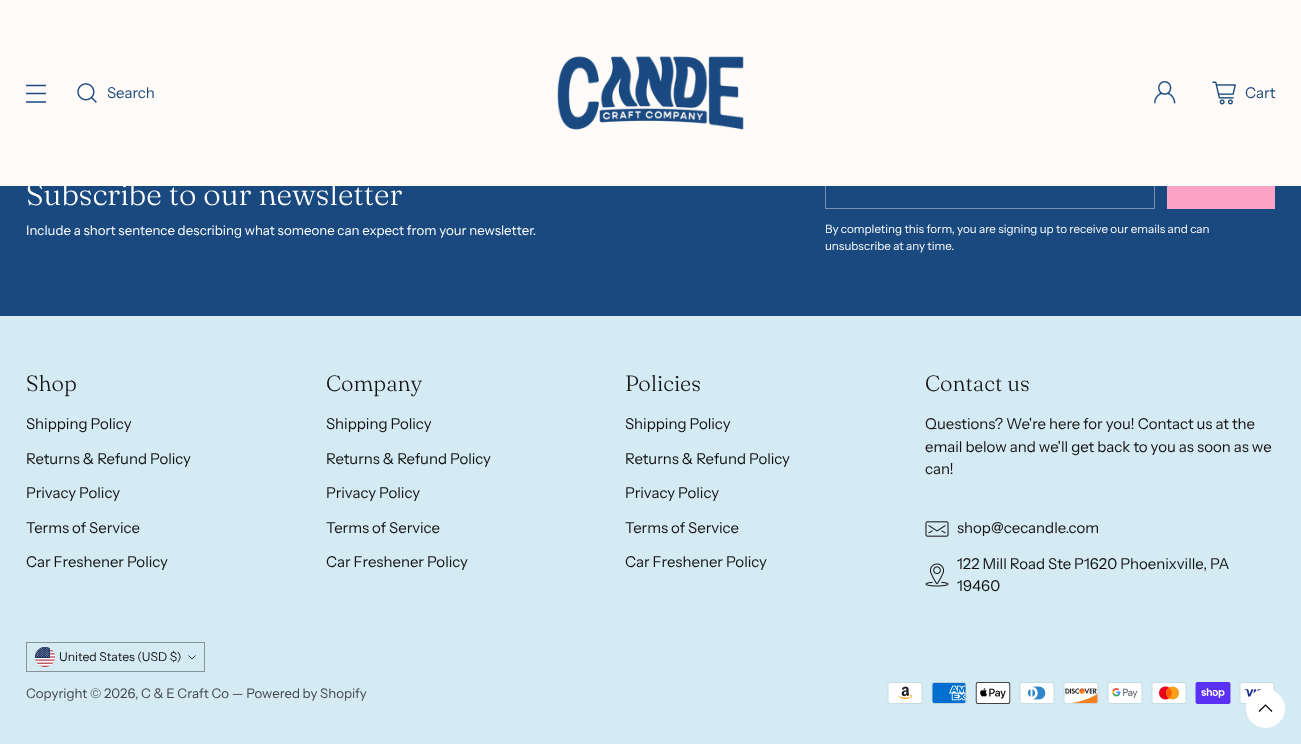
<svg xmlns="http://www.w3.org/2000/svg" width="1301" height="744" viewBox="0 0 1301 744">
  <style>
    .t1 { font: 300 31px Fraunces; fill: #fff; }
    .t2 { font: 15px Instrument Sans; fill: #19497f; }
    .t3 { font: 13.3px Instrument Sans; fill: #fff; }
    .t4 { font: 11.65px Instrument Sans; fill: #fff; }
    .t5 { font: 300 22px 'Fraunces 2'; fill: #121212; }
    .t6 { font: 15px Instrument Sans; fill: #121212; }
    .t7 { font: 12.25px Instrument Sans; fill: #121212; }
    .t8 { font: 13.3px Instrument Sans; fill: #43484b; }
  </style>
  <rect width="100%" height="100%" fill="#d4ebf4"/>
  <rect x="0" y="186" width="1301" height="130" fill="#19497f"/>
  <text x="26" y="205" class="t1">Subscribe to our newsletter</text>
  <rect x="825.5" y="163.5" width="329" height="45" fill="none" stroke="#7592b2"/>
  <rect x="0" y="0" width="1301" height="186" fill="#fffbf9"/>
  <path d="M26 93.5H46M26 85.5H46M26 102H46" fill="none" stroke="#19497f" stroke-width="1.4"/>
  <image x="77" y="83" width="20" height="20" href="images/1.png"/>
  <text x="107" y="98" class="t2">Search</text>
  <image x="557" y="56" width="187" height="74" href="images/2.png"/>
  <image x="1154" y="81" width="22" height="23" href="images/3.png"/>
  <image x="1212" y="81" width="24" height="24" href="images/4.png"/>
  <text x="1245" y="98" class="t2">Cart</text>
  <text x="26" y="235" class="t3">Include a short sentence describing what someone can expect from your newsletter.</text>
  <rect x="1167" y="186" width="108" height="23" fill="#fca2c5"/>
  <text x="825" y="233" class="t4">By completing this form, you are signing up to receive our emails and can</text>
  <text x="825" y="250" class="t4">unsubscribe at any time.</text>
  <text x="26" y="391" class="t5">Shop</text>
  <text x="26" y="429" class="t6">Shipping Policy</text>
  <text x="26" y="464" class="t6">Returns &amp; Refund Policy</text>
  <text x="26" y="498" class="t6">Privacy Policy</text>
  <text x="26" y="533" class="t6">Terms of Service</text>
  <text x="26" y="567" class="t6">Car Freshener Policy</text>
  <text x="326" y="391" class="t5">Company</text>
  <text x="326" y="429" class="t6">Shipping Policy</text>
  <text x="326" y="464" class="t6">Returns &amp; Refund Policy</text>
  <text x="326" y="498" class="t6">Privacy Policy</text>
  <text x="326" y="533" class="t6">Terms of Service</text>
  <text x="326" y="567" class="t6">Car Freshener Policy</text>
  <text x="625" y="391" class="t5">Policies</text>
  <text x="625" y="429" class="t6">Shipping Policy</text>
  <text x="625" y="464" class="t6">Returns &amp; Refund Policy</text>
  <text x="625" y="498" class="t6">Privacy Policy</text>
  <text x="625" y="533" class="t6">Terms of Service</text>
  <text x="625" y="567" class="t6">Car Freshener Policy</text>
  <text x="925" y="391" class="t5">Contact us</text>
  <text x="925" y="429" class="t6">Questions? We're here for you! Contact us at the</text>
  <text x="925" y="452" class="t6">email below and we'll get back to you as soon as we</text>
  <text x="925" y="474" class="t6">can!</text>
  <image x="925" y="521" width="24" height="16" href="images/5.png"/>
  <text x="957" y="533" class="t6">shop@cecandle.com</text>
  <image x="925" y="563" width="24" height="24" href="images/6.png"/>
  <text x="957" y="569" class="t6">122 Mill Road Ste P1620 Phoenixville, PA</text>
  <text x="957" y="591" class="t6">19460</text>
  <rect x="26.5" y="642.5" width="178" height="29" fill="none" stroke="#86949a"/>
  <image x="35" y="647" width="20" height="20" href="images/7.png"/>
  <text x="59" y="661" class="t7">United States (USD $)</text>
  <path d="M188.5 655.5L192 659L195.5 655.5" fill="none" stroke="#121212" stroke-width="0.9"/>
  <text x="26" y="698" class="t8">Copyright © 2026, C &amp; E Craft Co — Powered by Shopify</text>
  <image x="887" y="682" width="36" height="22" href="images/8.png"/>
  <image x="931" y="682" width="36" height="22" href="images/9.png"/>
  <image x="975" y="682" width="36" height="22" href="images/10.png"/>
  <image x="1019" y="682" width="36" height="22" href="images/11.png"/>
  <image x="1063" y="682" width="36" height="22" href="images/12.png"/>
  <image x="1107" y="682" width="36" height="22" href="images/13.png"/>
  <image x="1151" y="682" width="36" height="22" href="images/14.png"/>
  <image x="1195" y="682" width="36" height="22" href="images/15.png"/>
  <image x="1239" y="682" width="36" height="22" href="images/16.png"/>
  <circle cx="1265.5" cy="708.5" r="19.5" fill="#fff"/>
  <path d="M1272 711.5L1265.5 705L1259 711.5" fill="none" stroke="#000" stroke-width="1.2"/>
</svg>
